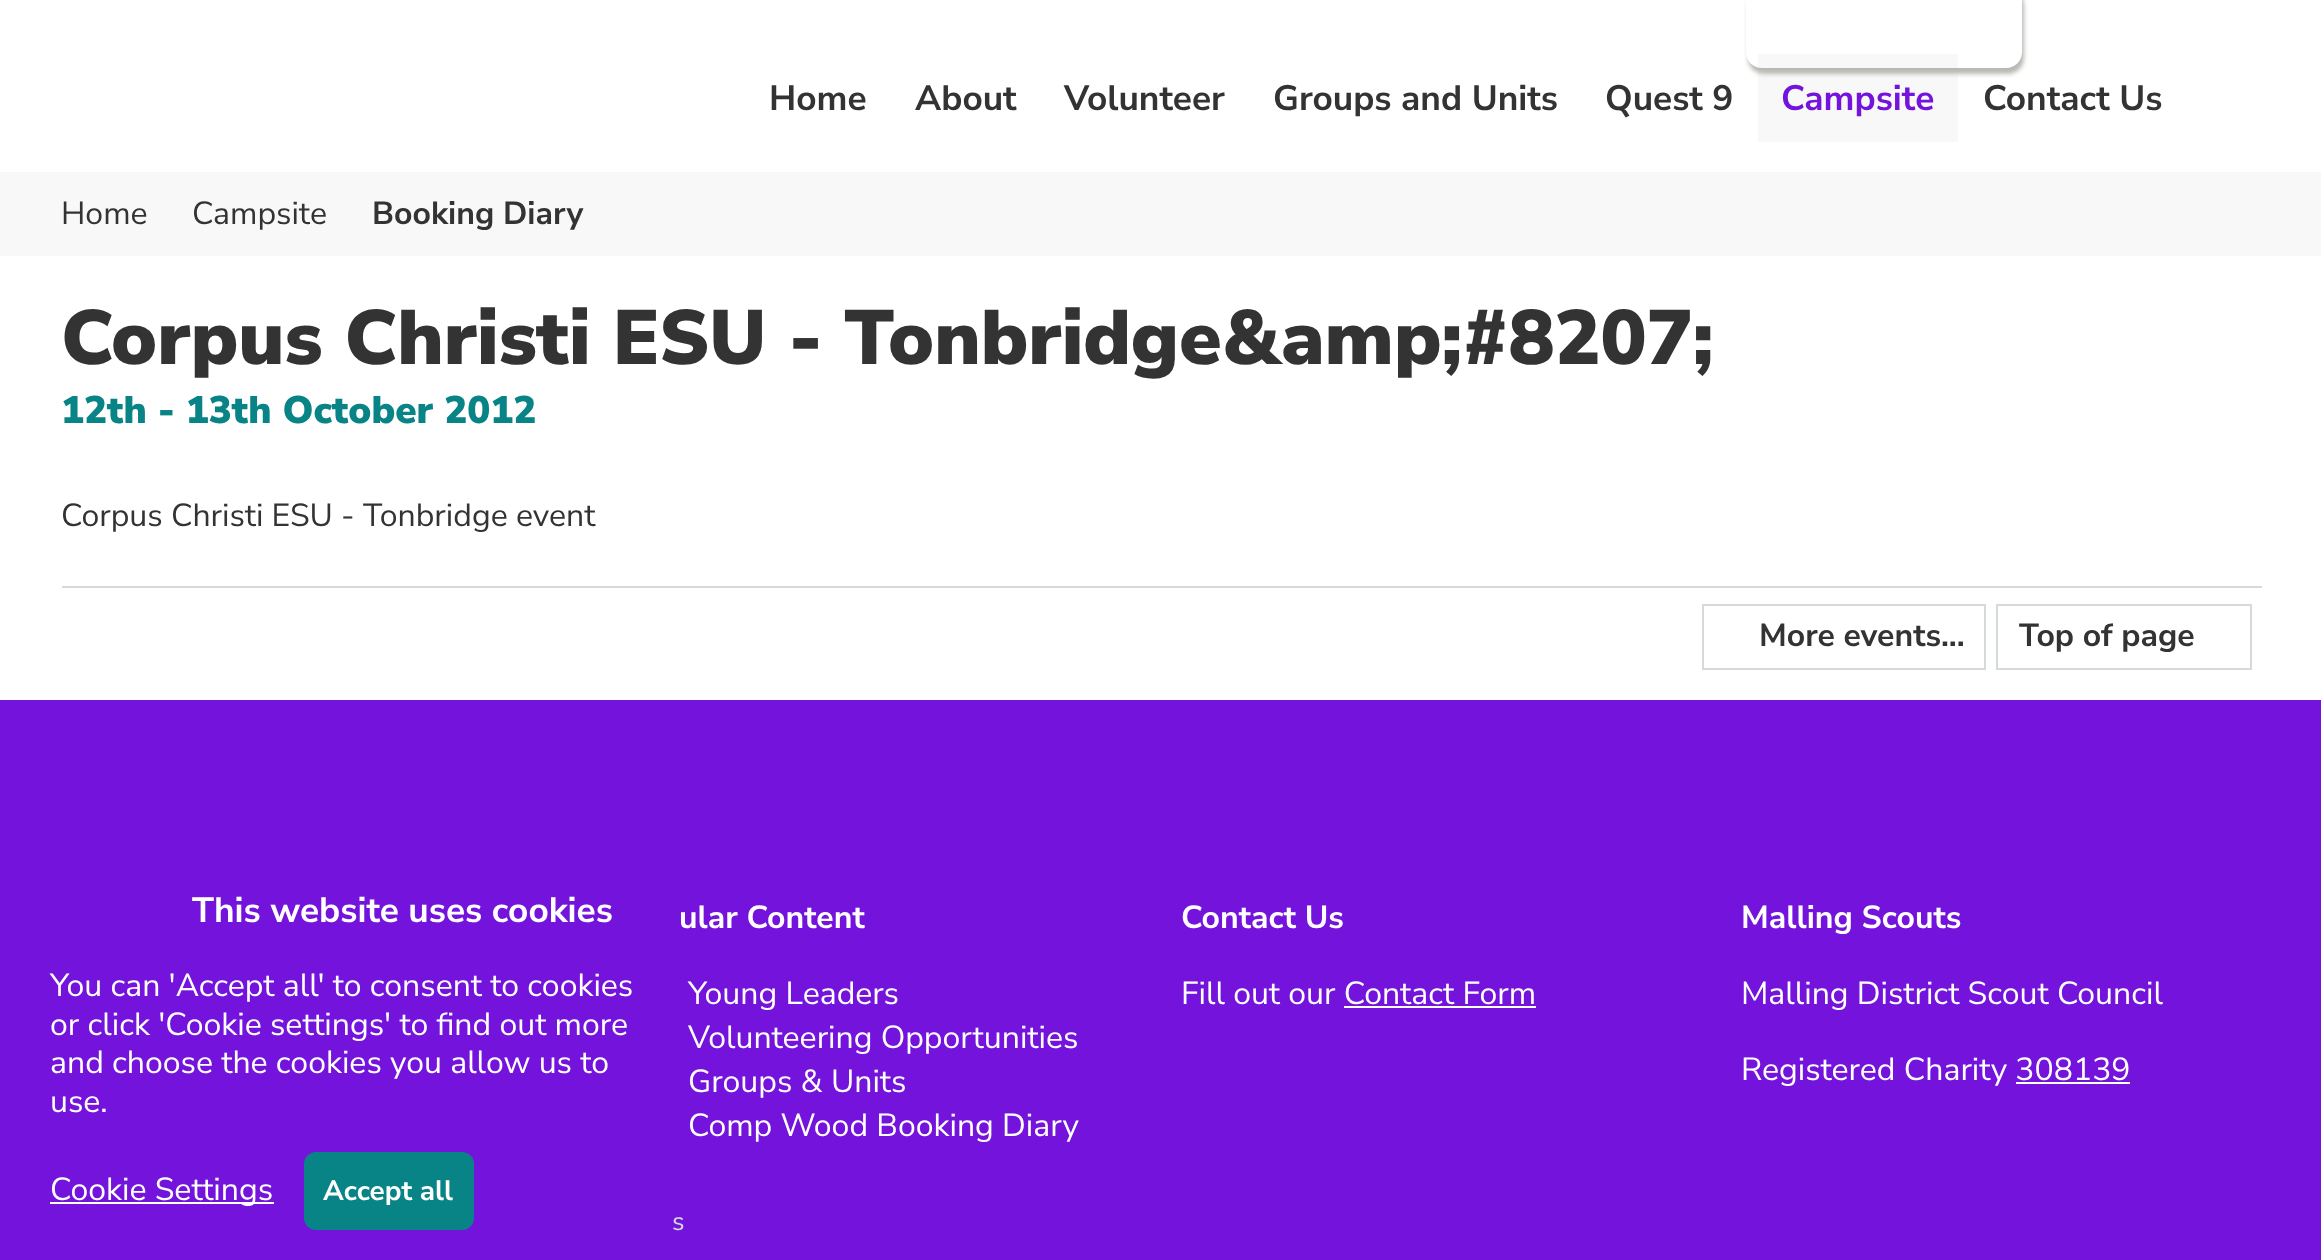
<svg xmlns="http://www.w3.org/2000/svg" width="2321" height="1260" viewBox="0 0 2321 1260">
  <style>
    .t1 { font: bold 35.25px Nunito Sans; fill: #333; }
    .t2 { font: bold 35.25px Nunito Sans; fill: #7413dc; }
    .t3 { font: 32px Nunito Sans; fill: #333; }
    .t4 { font: bold 32px Nunito Sans; fill: #333; }
    .t5 { font: 900 76.8px Nunito Sans; fill: #333; }
    .t6 { font: 900 38.4px Nunito Sans; fill: #088486; }
    .t7 { font: bold 35.25px Nunito Sans; fill: #fff; }
    .t8 { font: 32px Nunito Sans; fill: #fff; }
    .t9 { font: bold 28px Nunito Sans; fill: #fff; }
    .t10 { font: bold 32px Nunito Sans; fill: #fff; }
    .t11 { font: 26px Nunito Sans; fill: #d7dada; }
  </style>
  <defs>
    <clipPath id="clip1"><path d="M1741 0H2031V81H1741ZM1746-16H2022V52C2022 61 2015 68 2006 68H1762C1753 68 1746 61 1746 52Z" clip-rule="evenodd"/></clipPath>
  </defs>
  <rect width="100%" height="100%" fill="#7413dc"/>
  <rect x="0" y="0" width="2321" height="172" fill="#fff"/>
  <rect x="1758" y="54" width="200" height="88" fill="#f8f8f8"/>
  <g clip-path="url(#clip1)">
    <rect x="1748" y="-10" width="276" height="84" rx="16" fill="#b9b9b3" filter="blur(2px)"/>
  </g>
  <text x="769" y="110" class="t1">Home</text>
  <text x="915" y="110" class="t1">About</text>
  <text x="1064" y="110" class="t1">Volunteer</text>
  <text x="1273" y="110" class="t1">Groups and Units</text>
  <text x="1605" y="110" class="t1">Quest 9</text>
  <text x="1781" y="110" class="t2">Campsite</text>
  <text x="1983" y="110" class="t1">Contact Us</text>
  <rect x="0" y="256" width="2321" height="444" fill="#fff"/>
  <rect x="0" y="172" width="2321" height="84" fill="#f8f8f8"/>
  <text x="61" y="224" class="t3">Home</text>
  <text x="192" y="224" class="t3">Campsite</text>
  <text x="372" y="224" class="t4">Booking Diary</text>
  <text x="61" y="364" class="t5">Corpus Christi ESU - Tonbridge&amp;amp;#8207;</text>
  <text x="61" y="423" class="t6">12th - 13th October 2012</text>
  <text x="61" y="526" class="t3">Corpus Christi ESU - Tonbridge event</text>
  <rect x="62" y="586" width="2200" height="2" fill="#d7dada"/>
  <rect x="1703" y="605" width="282" height="64" fill="none" stroke="#d7dada" stroke-width="2"/>
  <text x="1759" y="646" class="t4">More events...</text>
  <rect x="1997" y="605" width="254" height="64" fill="none" stroke="#d7dada" stroke-width="2"/>
  <text x="2019" y="646" class="t4">Top of page</text>
  <text x="192" y="922" class="t7">This website uses cookies</text>
  <text x="50" y="996" class="t8">You can 'Accept all' to consent to cookies</text>
  <text x="50" y="1035" class="t8">or click 'Cookie settings' to find out more</text>
  <text x="50" y="1073" class="t8">and choose the cookies you allow us to</text>
  <text x="50" y="1112" class="t8">use.</text>
  <rect x="50" y="1202" width="224" height="2" fill="#fff"/>
  <text x="50" y="1200" class="t8">Cookie Settings</text>
  <rect x="304" y="1152" width="170" height="78" rx="12" fill="#088486"/>
  <text x="323" y="1200" class="t9">Accept all</text>
  <text x="679" y="928" class="t10">ular Content</text>
  <text x="688" y="1004" class="t8">Young Leaders</text>
  <text x="688" y="1048" class="t8">Volunteering Opportunities</text>
  <text x="688" y="1092" class="t8">Groups &amp; Units</text>
  <text x="688" y="1136" class="t8">Comp Wood Booking Diary</text>
  <text x="1181" y="928" class="t10">Contact Us</text>
  <text x="1181" y="1004" class="t8">Fill out our Contact Form</text>
  <rect x="1344" y="1006" width="192" height="2" fill="#fff"/>
  <text x="1741" y="928" class="t10">Malling Scouts</text>
  <text x="1741" y="1004" class="t8">Malling District Scout Council</text>
  <text x="1741" y="1080" class="t8">Registered Charity 308139</text>
  <rect x="2016" y="1082" width="114" height="2" fill="#fff"/>
  <text x="672" y="1230" class="t11">s</text>
</svg>
